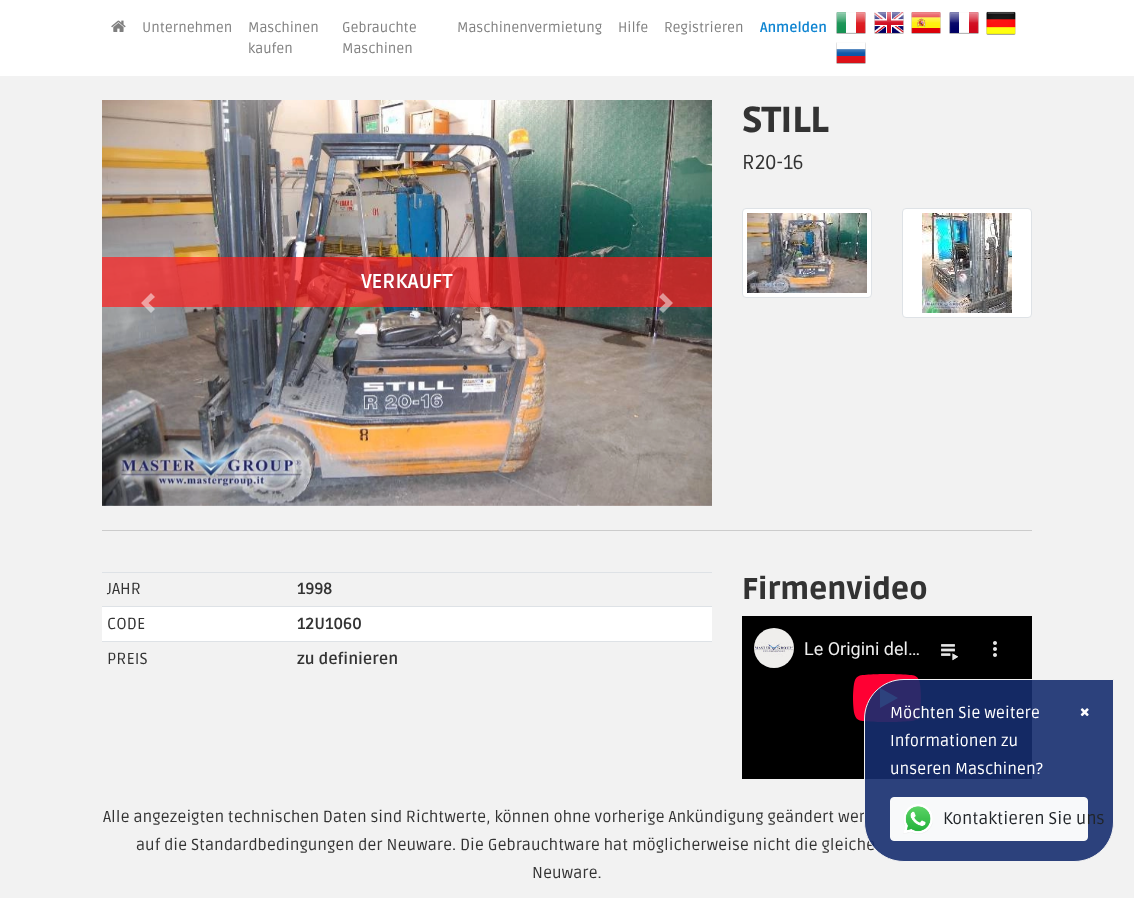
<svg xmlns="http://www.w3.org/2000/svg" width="1134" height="898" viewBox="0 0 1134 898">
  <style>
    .t1 { font: 14px Ruda; fill: #808080; }
    .t2 { font: bold 14px Ruda; fill: #0e84d1; }
    .t3 { font: 900 36px Ruda; fill: #333; }
    .t4 { font: 20px Ruda; fill: #333; }
    .t5 { font: bold 20px Ruda; fill: #fff; }
    .t6 { font: 16px Ruda; fill: #333; }
    .t7 { font: bold 16px Ruda; fill: #333; }
    .t8 { font: 900 30px Ruda; fill: #333; }
    .t9 { font: 16px Ruda; fill: #fff; }
    .t10 { font: 17px Ruda; fill: #212529; }
  </style>
  <rect width="100%" height="100%" fill="#f2f2f2"/>
  <rect x="0" y="0" width="1134" height="76" fill="#fff"/>
  <image x="111" y="20" width="15" height="12" href="images/1.png"/>
  <text x="142" y="32" class="t1">Unternehmen</text>
  <text x="248" y="32" class="t1">Maschinen</text>
  <text x="248" y="53" class="t1">kaufen</text>
  <text x="342" y="32" class="t1">Gebrauchte</text>
  <text x="342" y="53" class="t1">Maschinen</text>
  <text x="457" y="32" class="t1">Maschinenvermietung</text>
  <text x="618" y="32" class="t1">Hilfe</text>
  <text x="664" y="32" class="t1">Registrieren</text>
  <text x="760" y="32" class="t2">Anmelden</text>
  <image x="836" y="12" width="30" height="22" href="images/2.png"/>
  <image x="874" y="12" width="30" height="22" href="images/3.png"/>
  <image x="911" y="12" width="30" height="22" href="images/4.png"/>
  <image x="949" y="12" width="30" height="22" href="images/5.png"/>
  <image x="986" y="11" width="30" height="24" href="images/6.png"/>
  <image x="836" y="42" width="30" height="22" href="images/7.png"/>
  <text x="742" y="132" class="t3">STILL</text>
  <text x="742" y="169" class="t4">R20-16</text>
  <rect x="742.5" y="208.5" width="129" height="89" rx="3.5" fill="#fff" stroke="#dee2e6"/>
  <image x="747" y="213" width="120" height="80" href="images/8.png"/>
  <rect x="902.5" y="208.5" width="129" height="109" rx="3.5" fill="#fff" stroke="#dee2e6"/>
  <image x="922" y="213" width="90" height="100" href="images/9.png"/>
  <image x="102" y="100" width="610" height="406" href="images/10.png"/>
  <rect x="102" y="257" width="610" height="50" fill="#ff1c1cb3"/>
  <text x="361" y="288" class="t5">VERKAUFT</text>
  <path d="M151 293L141 303L151 313L155 309L148.5 303L155 297Z" fill="#ffffff80"/>
  <path d="M663 293L659 297L665.5 303L659 309L663 313L673 303Z" fill="#ffffff80"/>
  <rect x="102" y="530" width="930" height="1" fill="#ccc"/>
  <rect x="102" y="607" width="610" height="34" fill="#fff"/>
  <text x="107" y="594" class="t6">JAHR</text>
  <rect x="102" y="572" width="610" height="1" fill="#dee2e6"/>
  <text x="297" y="594" class="t7">1998</text>
  <text x="107" y="629" class="t6">CODE</text>
  <rect x="102" y="606" width="610" height="1" fill="#dee2e6"/>
  <text x="297" y="629" class="t7">12U1060</text>
  <text x="107" y="664" class="t6">PREIS</text>
  <rect x="102" y="641" width="610" height="1" fill="#dee2e6"/>
  <text x="297" y="664" class="t7">zu definieren</text>
  <text x="742" y="599" class="t8">Firmenvideo</text>
  <image x="742" y="616" width="290" height="163" href="images/11.png"/>
  <text x="103" y="822" class="t6">Alle angezeigten technischen Daten sind Richtwerte, können ohne vorherige Ankündigung geändert wer</text>
  <text x="136" y="850" class="t6">auf die Standardbedingungen der Neuware. Die Gebrauchtware hat möglicherweise nicht die gleiche</text>
  <path d="M904 679.5H1113.5V822C1113.5 844 1096 861.5 1074 861.5H904C882 861.5 864.5 844 864.5 822V719C864.5 697 882 679.5 904 679.5Z" fill="#162d6fe6" stroke="#f2f2f2"/>
  <text x="890" y="718" class="t9">Möchten Sie weitere</text>
  <text x="890" y="746" class="t9">Informationen zu</text>
  <text x="890" y="774" class="t9">unseren Maschinen?</text>
  <image x="1080" y="708" width="9" height="9" href="images/12.png"/>
  <rect x="890.5" y="797.5" width="197" height="43" rx="3.5" fill="#f8f9fa" stroke="#f8f9fa"/>
  <image x="903" y="804" width="30" height="30" href="images/13.png"/>
  <text x="943" y="824" class="t10">Kontaktieren Sie uns</text>
  <text x="532" y="878" class="t6">Neuware.</text>
</svg>
